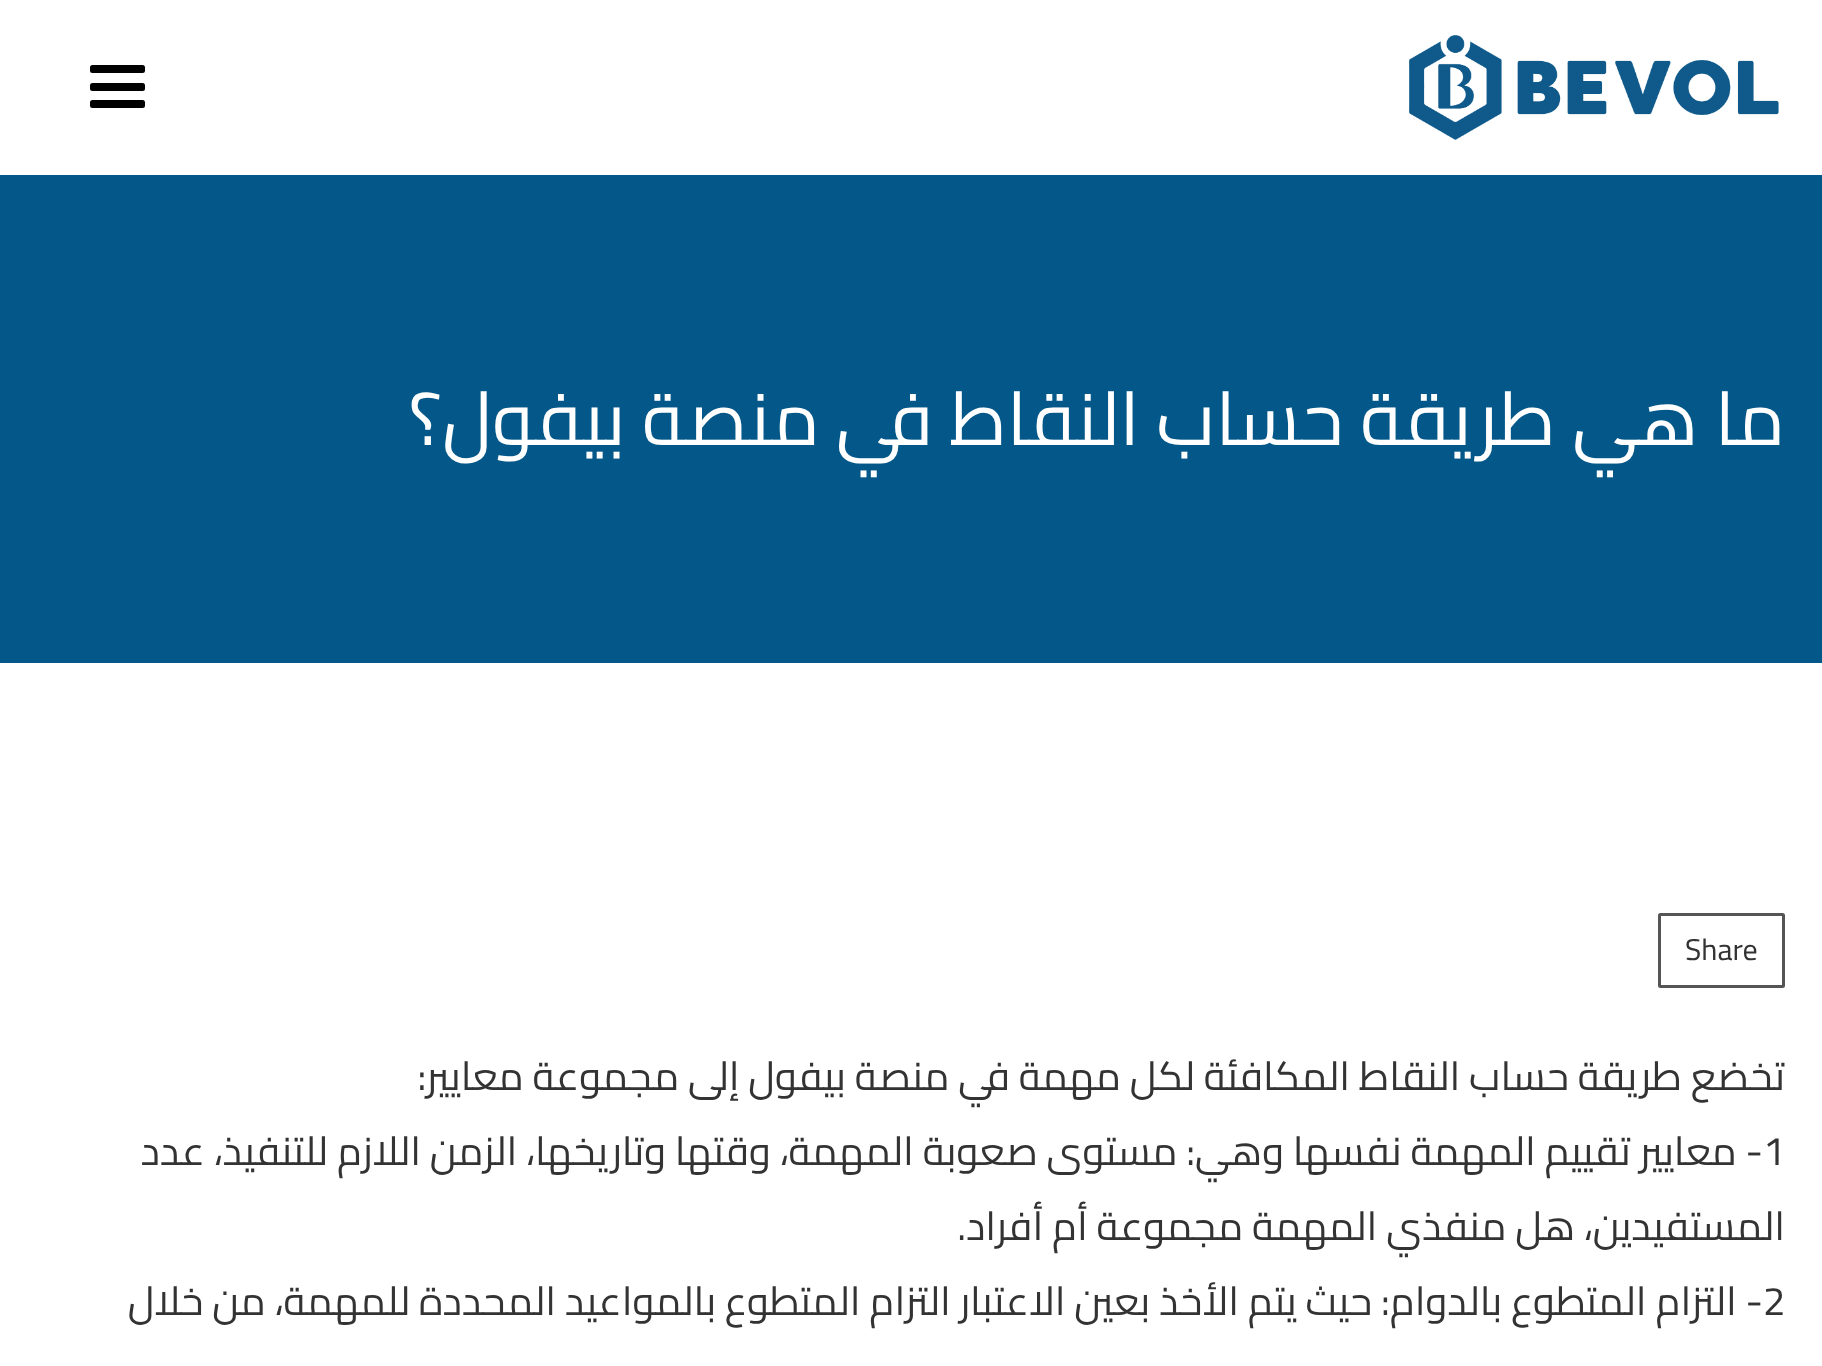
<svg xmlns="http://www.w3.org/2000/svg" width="1822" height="1366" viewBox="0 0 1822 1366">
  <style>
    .t1 { font: 75px Cairo; direction: rtl; fill: #fff; }
    .t2 { font: 30px Cairo; fill: #333; }
    .t3 { font: 40px Cairo; direction: rtl; fill: #333; }
    .t4 { font: 40px Cairo; fill: #333; }
  </style>
  <rect width="100%" height="100%" fill="#fff"/>
  <image x="1409" y="35" width="370" height="105" href="images/1.png"/>
  <rect x="90" y="65" width="55" height="8" rx="2.5" fill="#000"/>
  <rect x="90" y="83" width="55" height="8" rx="2.5" fill="#000"/>
  <rect x="90" y="100" width="55" height="8" rx="2.5" fill="#000"/>
  <rect x="0" y="175" width="1822" height="488" fill="#035889"/>
  <text x="1785" y="445" class="t1">ما هي طريقة حساب النقاط في منصة بيفول؟</text>
  <rect x="1659.5" y="914.5" width="124" height="72" rx="1" fill="none" stroke="#555" stroke-width="3"/>
  <text x="1685" y="960" class="t2">Share</text>
  <text x="1785" y="1090" class="t3">تخضع طريقة حساب النقاط المكافئة لكل مهمة في منصة بيفول إلى مجموعة معايير:</text>
  <text x="1763" y="1165" class="t4">1</text>
  <text x="1763" y="1165" class="t3">- معايير تقييم المهمة نفسها وهي: مستوى صعوبة المهمة، وقتها وتاريخها، الزمن اللازم للتنفيذ، عدد</text>
  <text x="1785" y="1240" class="t3">المستفيدين، هل منفذي المهمة مجموعة أم أفراد.</text>
  <text x="1763" y="1315" class="t4">2</text>
  <text x="1763" y="1315" class="t3">- التزام المتطوع بالدوام: حيث يتم الأخذ بعين الاعتبار التزام المتطوع بالمواعيد المحددة للمهمة، من خلال</text>
</svg>
